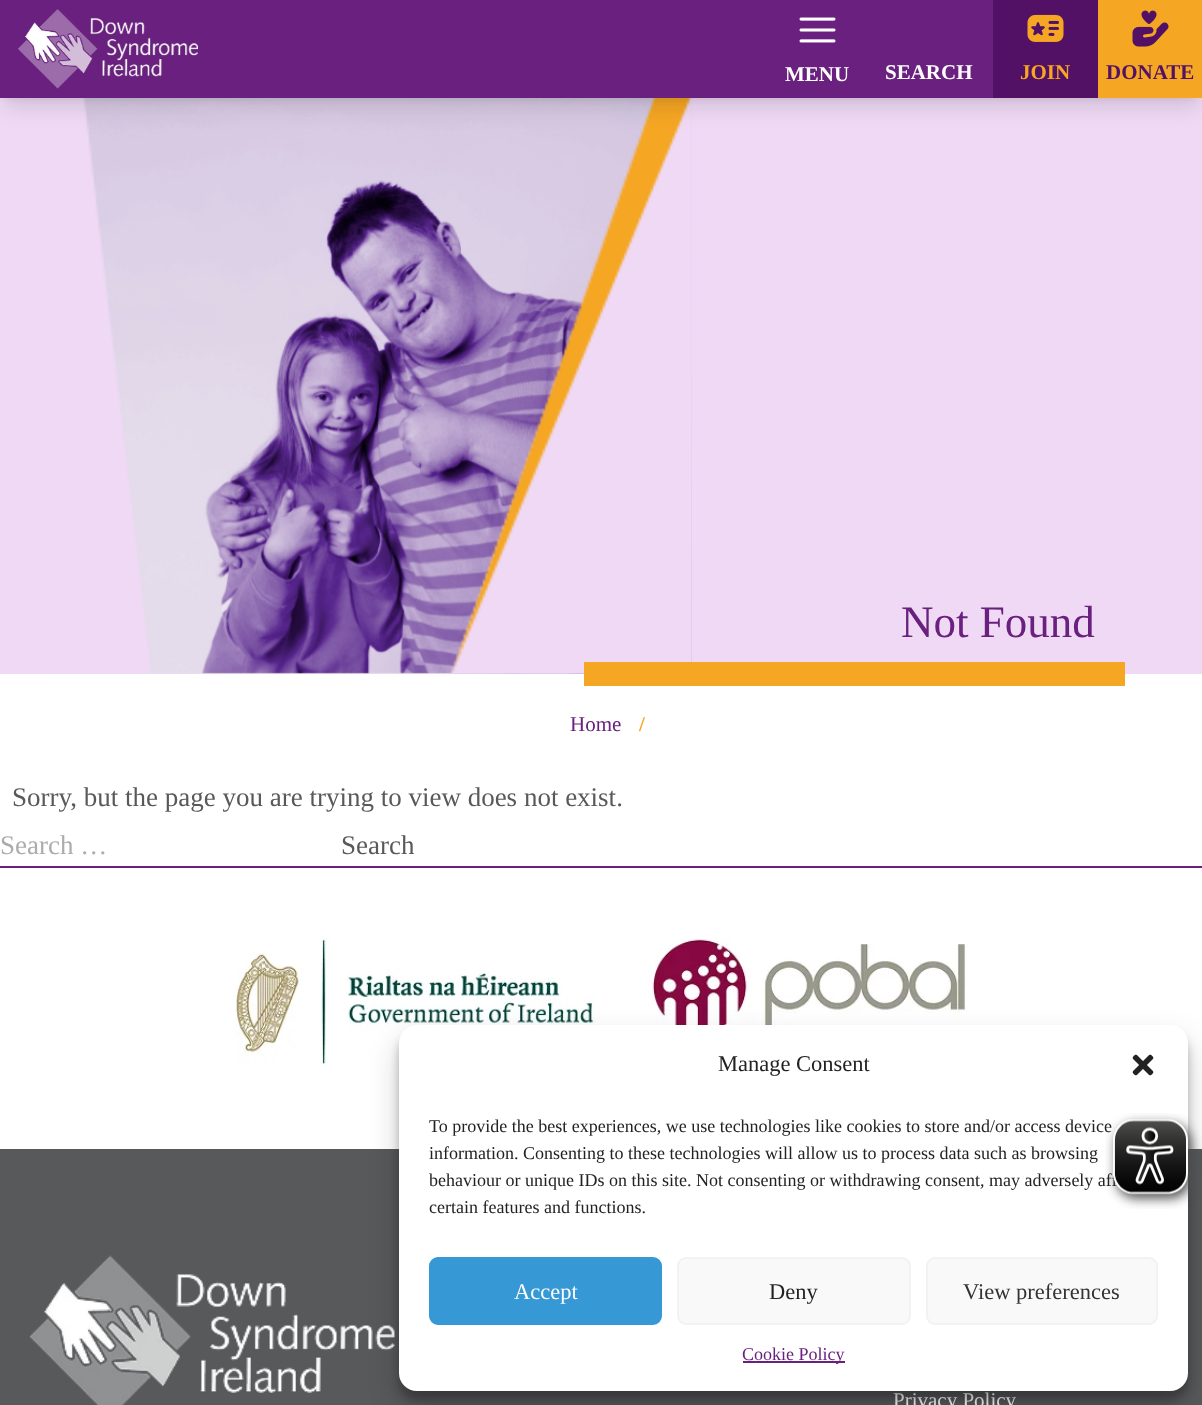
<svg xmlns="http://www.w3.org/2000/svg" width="1202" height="1405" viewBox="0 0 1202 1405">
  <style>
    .t1 { font: bold 21px Liberation Serif; fill: #fff; }
    .t2 { font: bold 21px Liberation Serif; fill: #f5a623; }
    .t3 { font: bold 21px Liberation Serif; fill: #531166; }
    .t4 { font: 45px Liberation Serif; fill: #69207e; }
    .t5 { font: 21px Liberation Serif; fill: #69207e; }
    .t6 { font: 27px Liberation Serif; fill: #58595b; }
    .t7 { font: 27px Liberation Serif; fill: #acacad; }
    .t8 { font: 21px Liberation Serif; fill: #fff; }
    .t9 { font: 22.5px Liberation Serif; fill: #222; }
    .t10 { font: 18px Liberation Serif; fill: #222; }
    .t11 { font: 22.5px Liberation Serif; fill: #fff; }
    .t12 { font: 22.5px Liberation Serif; fill: #333; }
    .t13 { font: 18px Liberation Serif; fill: #69207e; }
  </style>
  <rect width="100%" height="100%" fill="#fff"/>
  <rect x="0" y="98" width="1202" height="576" fill="#efd9f5"/>
  <image x="60" y="98" width="632" height="576" href="images/5.png"/>
  <image x="60" y="98" width="92" height="575" href="images/6.png"/>
  <image x="451" y="98" width="241" height="576" href="images/7.png"/>
  <rect x="6" y="12" width="1191" height="86" fill="#0000001a" filter="blur(4.5px)"/>
  <rect x="5" y="20" width="1194" height="88" fill="#0000001a" filter="blur(11px)"/>
  <rect x="0" y="0" width="993" height="98" fill="#69207e"/>
  <image x="18" y="9" width="180" height="80" href="images/1.png"/>
  <image x="799" y="17" width="37" height="26" href="images/2.png"/>
  <text x="785" y="81" class="t1">MENU</text>
  <text x="885" y="79" class="t1">SEARCH</text>
  <rect x="993" y="0" width="105" height="98" fill="#531166"/>
  <image x="1027" y="14" width="37" height="28" href="images/3.png"/>
  <text x="1020" y="79" class="t2">JOIN</text>
  <rect x="1098" y="0" width="104" height="98" fill="#f5a623"/>
  <image x="1132" y="10" width="37" height="37" href="images/4.png"/>
  <text x="1106" y="79" class="t3">DONATE</text>
  <rect x="584" y="662" width="541" height="24" fill="#f5a623"/>
  <text x="901" y="637" class="t4">Not Found</text>
  <text x="570" y="731" class="t5">Home</text>
  <text x="639" y="731" class="t2">/</text>
  <text x="12" y="806" class="t6">Sorry, but the page you are trying to view does not exist.</text>
  <text x="0" y="854" class="t7">Search …</text>
  <text x="341" y="854" class="t6">Search</text>
  <rect x="0" y="866" width="1202" height="2" fill="#69207e"/>
  <image x="235" y="938" width="732" height="127" href="images/8.png"/>
  <rect x="0" y="1149" width="1202" height="256" fill="#58595b"/>
  <image x="30" y="1255" width="365" height="150" href="images/9.png"/>
  <text x="893" y="1407" class="t8">Privacy Policy</text>
  <rect x="399" y="1034" width="789" height="366" rx="18" fill="#0000003b" filter="blur(4.5px)"/>
  <rect x="399" y="1040" width="789" height="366" rx="18" fill="#00000030" filter="blur(15px)"/>
  <rect x="399" y="1025" width="789" height="366" rx="18" fill="#fff"/>
  <text x="718" y="1071" class="t9">Manage Consent</text>
  <image x="1132" y="1054" width="22" height="22" href="images/10.png"/>
  <text x="429" y="1132" class="t10">To provide the best experiences, we use technologies like cookies to store and/or access device</text>
  <text x="429" y="1159" class="t10">information. Consenting to these technologies will allow us to process data such as browsing</text>
  <text x="429" y="1186" class="t10">behaviour or unique IDs on this site. Not consenting or withdrawing consent, may adversely aff</text>
  <text x="429" y="1213" class="t10">certain features and functions.</text>
  <rect x="430" y="1258" width="231" height="66" rx="8" fill="#3698d4" stroke="#3698d4" stroke-width="2"/>
  <text x="514" y="1299" class="t11">Accept</text>
  <rect x="678" y="1258" width="232" height="66" rx="8" fill="#f9f9f9" stroke="#f2f2f2" stroke-width="2"/>
  <text x="769" y="1299" class="t9">Deny</text>
  <rect x="927" y="1258" width="230" height="66" rx="8" fill="#f9f9f9" stroke="#f2f2f2" stroke-width="2"/>
  <text x="963" y="1299" class="t12">View preferences</text>
  <rect x="743" y="1361" width="102" height="2" fill="#69207e"/>
  <text x="742" y="1360" class="t13">Cookie Policy</text>
  <image x="1105" y="1113" width="97" height="96" href="images/11.png"/>
</svg>
